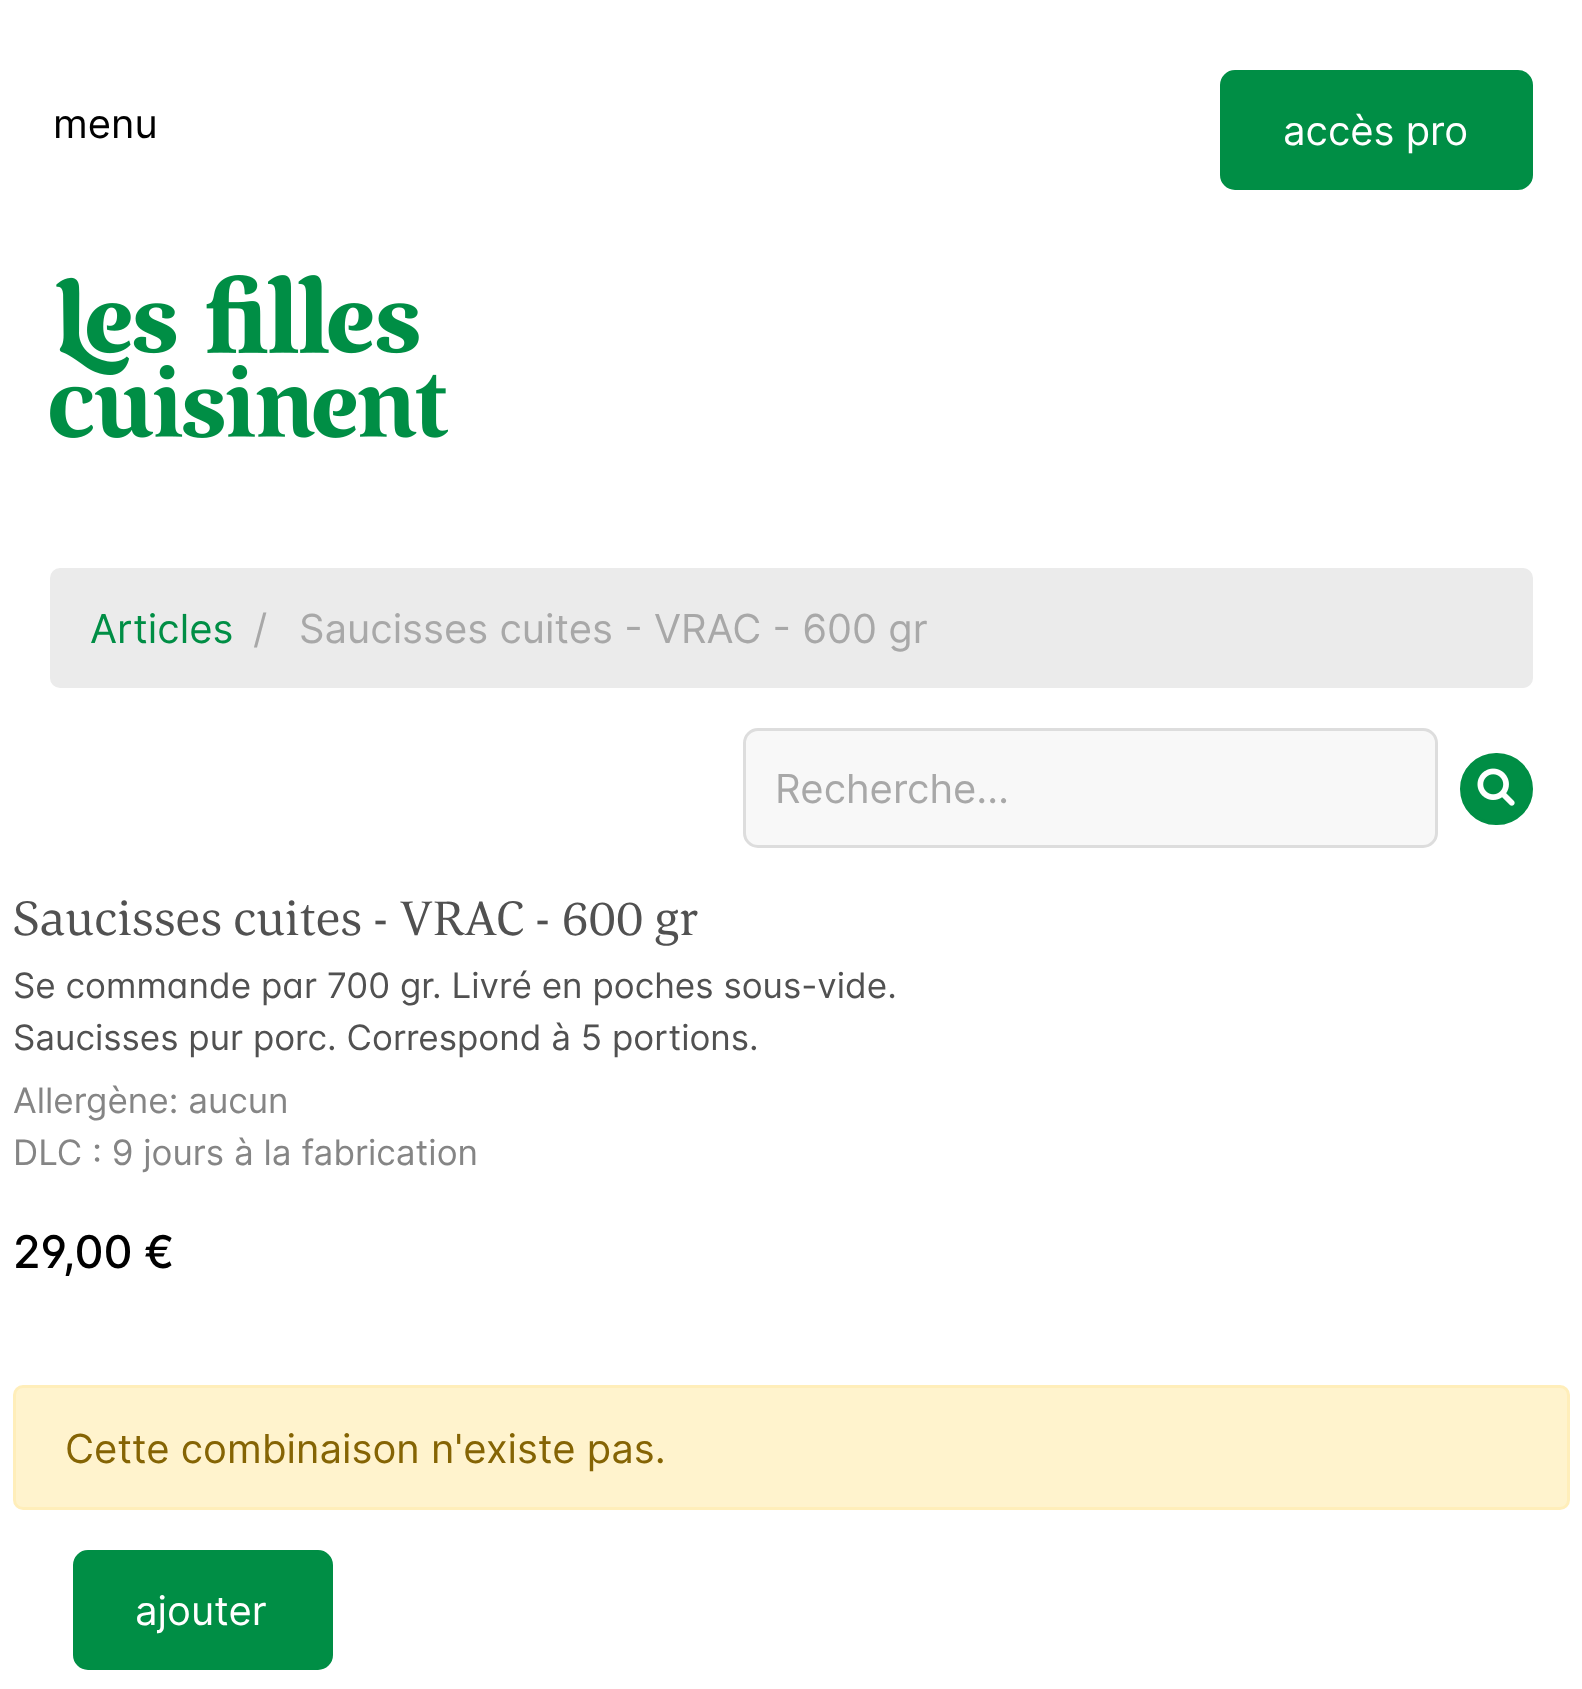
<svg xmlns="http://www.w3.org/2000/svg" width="1582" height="1689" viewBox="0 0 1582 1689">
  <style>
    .t1 { font: 40px Inter; fill: #000; }
    .t2 { font: 40px Inter; fill: #fff; }
    .t3 { font: 40px Inter; fill: #008e45; }
    .t4 { font: 40px Inter; fill: #a8a8a8; }
    .t5 { font: 50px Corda; fill: #515151; }
    .t6 { font: 35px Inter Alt; fill: #515151; }
    .t7 { font: 35px Inter; fill: #515151; }
    .t8 { font: 35px Inter; fill: #858585; }
    .t9 { font: 500 45px Inter Alt; fill: #000; }
    .t10 { font: 500 45px Inter; fill: #000; }
    .t11 { font: 40px Inter; fill: #856404; }
  </style>
  <rect width="100%" height="100%" fill="#fff"/>
  <text x="53" y="138" class="t1">menu</text>
  <rect x="1221.5" y="71.5" width="310" height="117" rx="13.5" fill="#008e45" stroke="#008e45" stroke-width="3"/>
  <text x="1283" y="145" class="t2">accès pro</text>
  <image x="56" y="275" width="363" height="100" href="images/1.png"/>
  <image x="50" y="365" width="398" height="73" href="images/2.png"/>
  <rect x="50" y="568" width="1483" height="120" rx="10" fill="#ebebeb"/>
  <text x="90" y="643" class="t3">Articles</text>
  <text x="253" y="643" class="t4">/</text>
  <text x="299" y="643" class="t4">Saucisses cuites - VRAC - 600 gr</text>
  <rect x="744.5" y="729.5" width="692" height="117" rx="13.5" fill="#f8f8f8" stroke="#ddd" stroke-width="3"/>
  <text x="775" y="803" class="t4">Recherche…</text>
  <rect x="1461.5" y="754.5" width="70" height="69" rx="34.5" fill="#008e45" stroke="#008e45" stroke-width="3"/>
  <image x="1477" y="768" width="38" height="38" href="images/3.png"/>
  <text x="13" y="935" class="t5">Saucisses cuites - VRAC - 600 gr</text>
  <text x="13" y="998" class="t6">Se commande par 700 gr. Livré en poches sous-vide.</text>
  <text x="13" y="1050" class="t7">Saucisses pur porc. Correspond à 5 portions.</text>
  <text x="13" y="1113" class="t8">Allergène: aucun</text>
  <text x="13" y="1165" class="t8">DLC : 9 jours à la fabrication</text>
  <text x="13" y="1268" class="t9">29,00</text>
  <text x="144" y="1268" class="t10">€</text>
  <rect x="14.5" y="1386.5" width="1554" height="122" rx="8.5" fill="#fff3cd" stroke="#ffeeba" stroke-width="3"/>
  <text x="65" y="1463" class="t11">Cette combinaison n'existe pas.</text>
  <rect x="74.5" y="1551.5" width="257" height="117" rx="13.5" fill="#008e45" stroke="#008e45" stroke-width="3"/>
  <text x="135" y="1625" class="t2">ajouter</text>
</svg>
